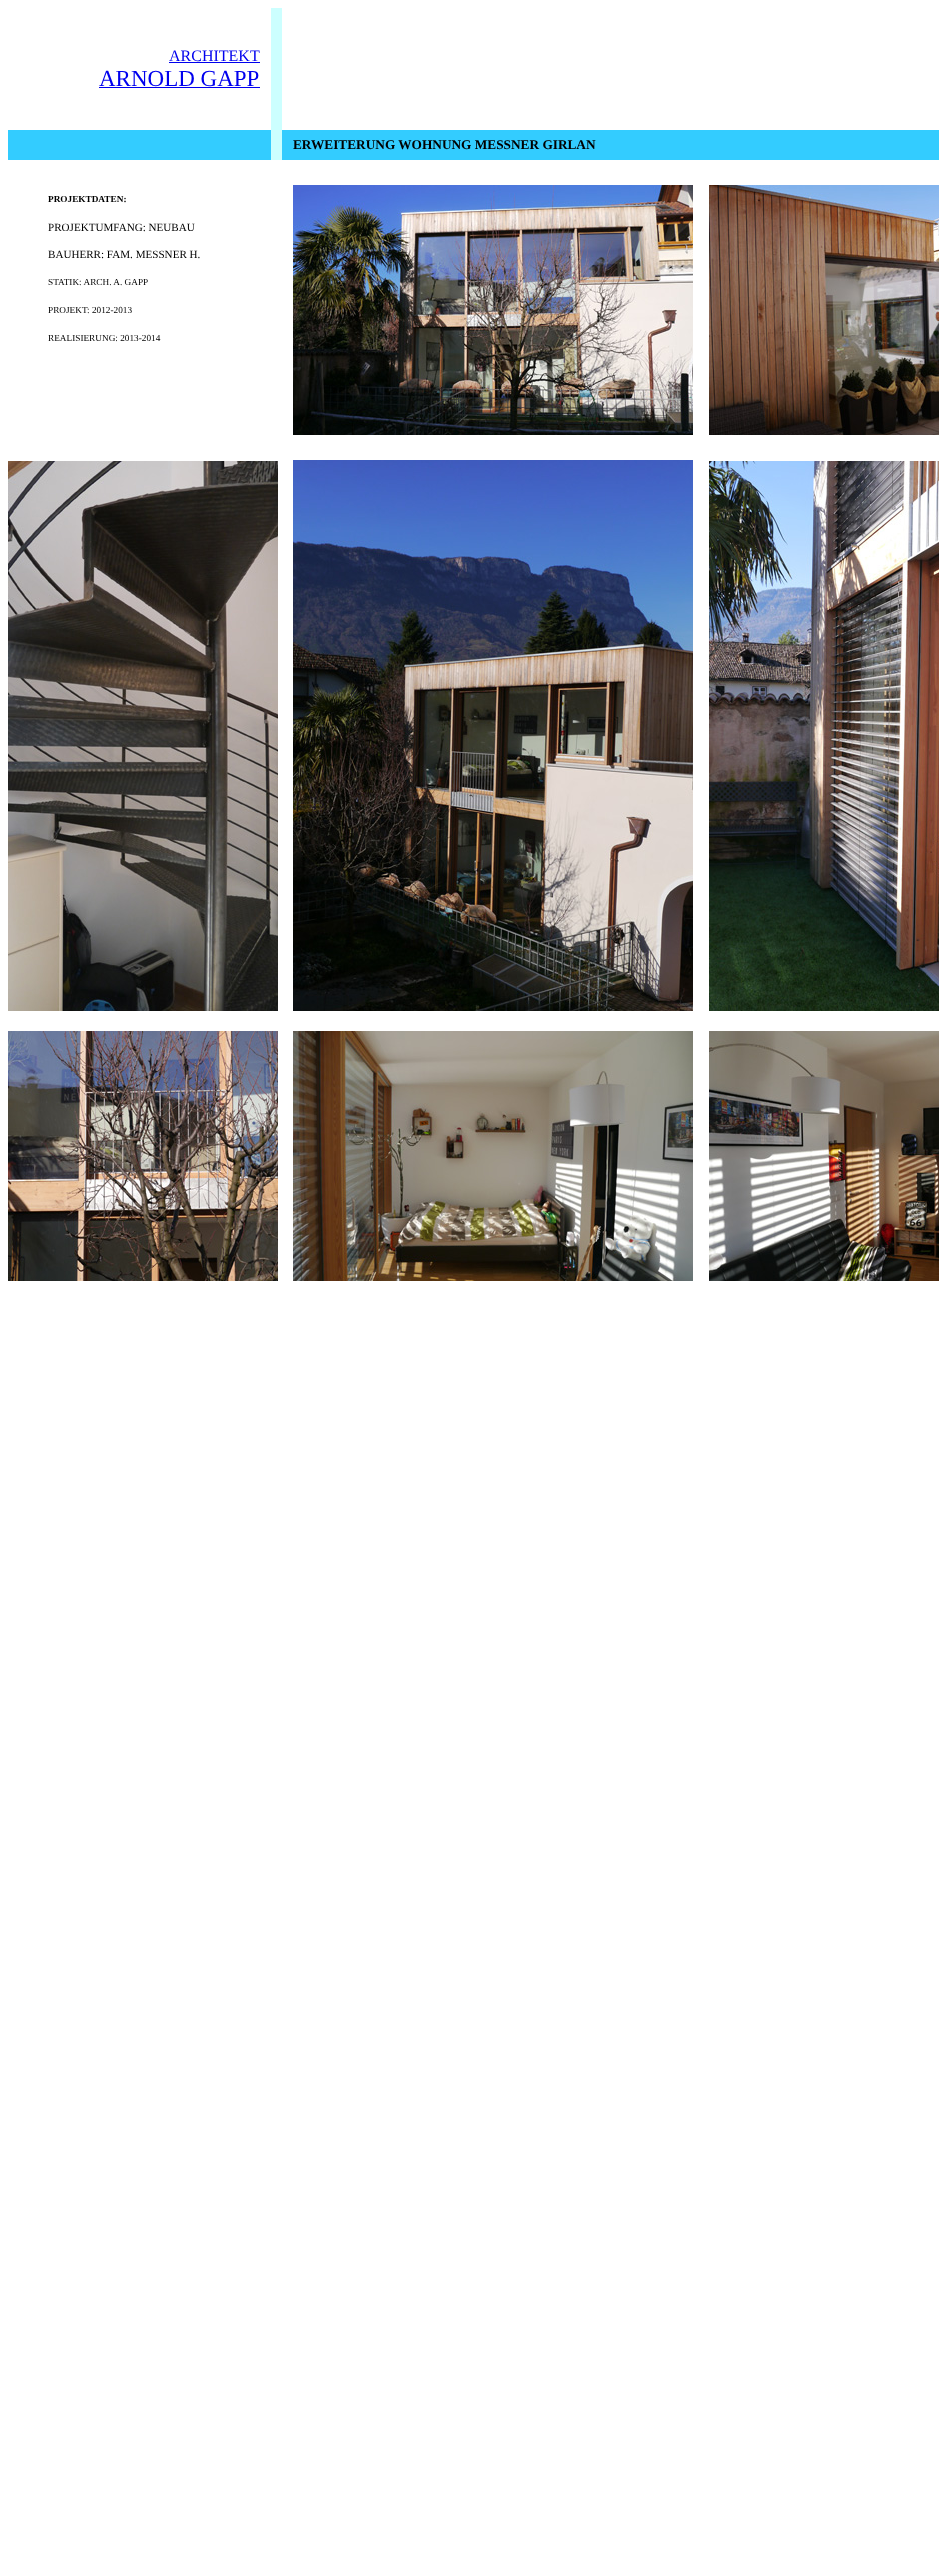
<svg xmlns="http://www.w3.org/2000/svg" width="939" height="2553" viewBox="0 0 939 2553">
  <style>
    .t1 { font: 16px Liberation Serif; fill: #00e; }
    .t2 { font: 23px Liberation Serif; fill: #00e; }
    .t3 { font: bold 13.3px Liberation Serif; fill: #000; }
    .t4 { font: bold 9.25px Liberation Serif; fill: #000; }
    .t5 { font: 11.1px Liberation Serif; fill: #000; }
    .t6 { font: 9.25px Liberation Serif; fill: #000; }
  </style>
  <rect width="100%" height="100%" fill="#fff"/>
  <text x="169" y="61" class="t1">ARCHITEKT</text>
  <rect x="169" y="62" width="91" height="1" fill="#00e"/>
  <text x="99" y="86" class="t2">ARNOLD GAPP</text>
  <rect x="99" y="87" width="161" height="1" fill="#00e"/>
  <rect x="271" y="8" width="11" height="152" fill="#cff"/>
  <rect x="8" y="130" width="263" height="30" fill="#3cf"/>
  <rect x="282" y="130" width="657" height="30" fill="#3cf"/>
  <text x="293" y="149" class="t3">ERWEITERUNG WOHNUNG MESSNER GIRLAN</text>
  <text x="48" y="202" class="t4">PROJEKTDATEN:</text>
  <image x="293" y="185" width="400" height="250" href="images/1.png"/>
  <image x="709" y="185" width="230" height="250" href="images/2.png"/>
  <text x="48" y="231" class="t5">PROJEKTUMFANG: NEUBAU</text>
  <text x="48" y="258" class="t5">BAUHERR: FAM. MESSNER H.</text>
  <text x="48" y="285" class="t6">STATIK: ARCH. A. GAPP</text>
  <text x="48" y="313" class="t6">PROJEKT: 2012-2013</text>
  <text x="48" y="341" class="t6">REALISIERUNG: 2013-2014</text>
  <image x="8" y="461" width="270" height="550" href="images/3.png"/>
  <image x="293" y="460" width="400" height="551" href="images/4.png"/>
  <image x="709" y="461" width="230" height="550" href="images/5.png"/>
  <image x="8" y="1031" width="270" height="250" href="images/6.png"/>
  <image x="293" y="1031" width="400" height="250" href="images/7.png"/>
  <image x="709" y="1031" width="230" height="250" href="images/8.png"/>
</svg>
